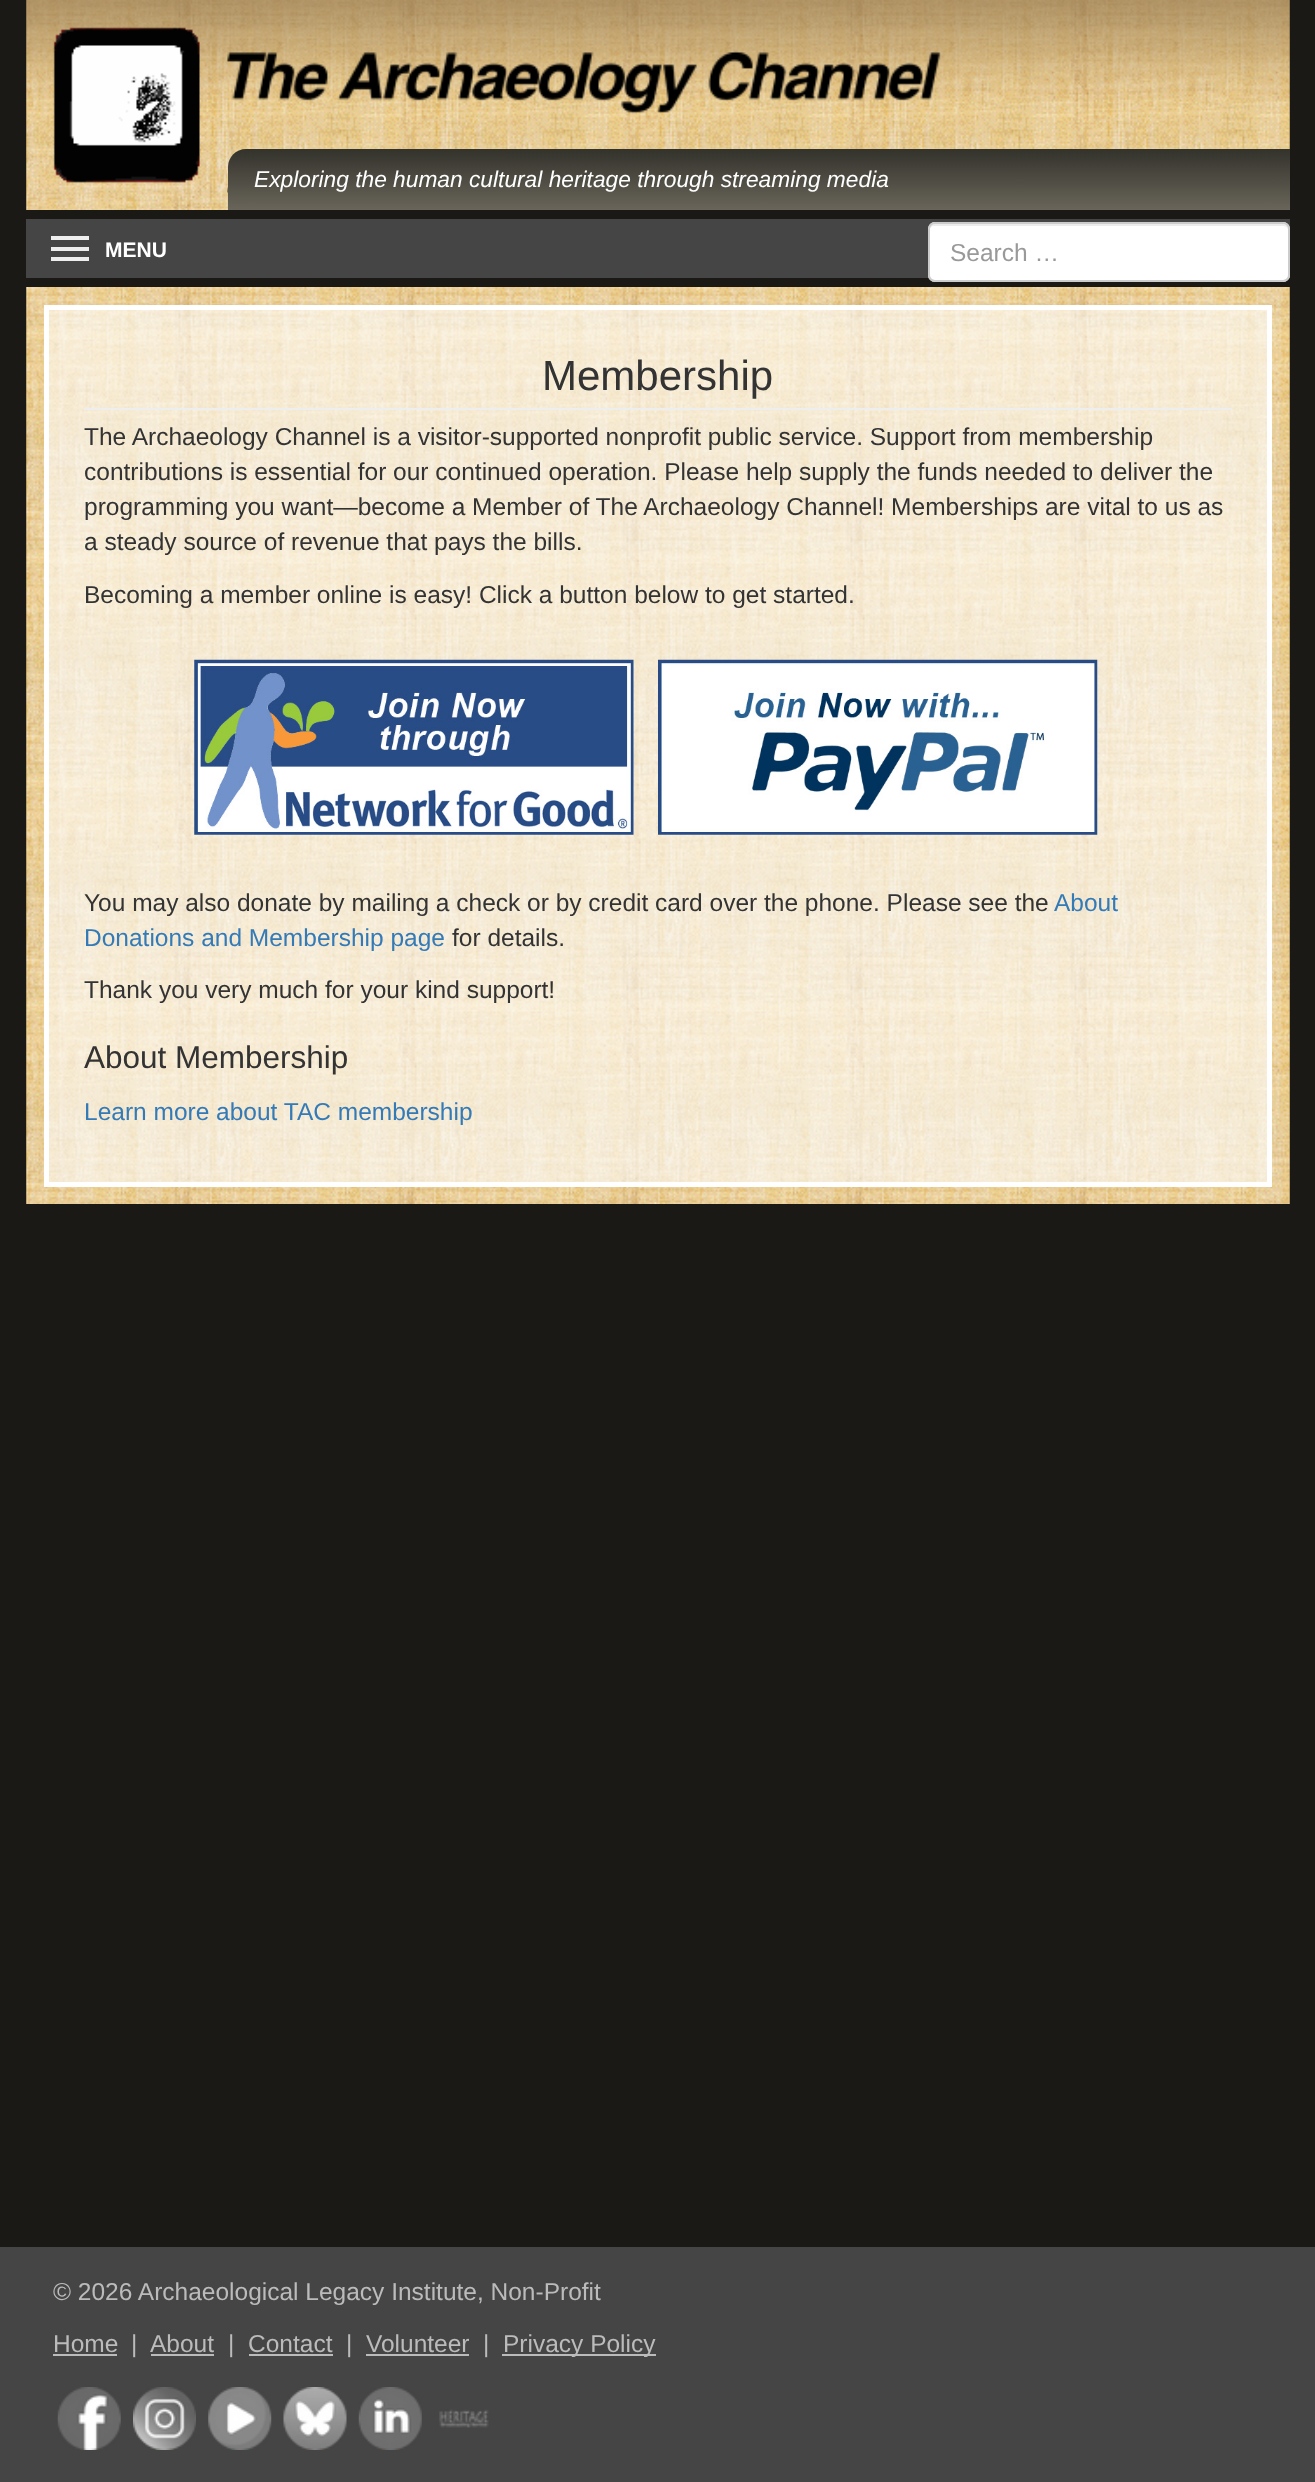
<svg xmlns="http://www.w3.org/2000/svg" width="1315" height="2482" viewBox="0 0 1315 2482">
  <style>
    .t1 { font: bold 21px Liberation Sans; fill: #fff; }
    .t2 { font: italic 22.75px Liberation Sans; fill: #fff; }
    .t3 { font: 24.5px Liberation Sans; fill: #999; }
    .t4 { font: 42px Liberation Sans; fill: #333; }
    .t5 { font: 24.5px Liberation Sans; fill: #333; }
    .t6 { font: 24.5px Liberation Sans; fill: #337ab7; }
    .t7 { font: 31.5px Liberation Sans; fill: #333; }
    .t8 { font: 24.5px Liberation Sans; fill: #bbb; }
  </style>
  <defs>
    <linearGradient id="g1" gradientUnits="userSpaceOnUse" x1="759" y1="149" x2="759" y2="210"><stop offset="0" stop-color="#33322b"/><stop offset="1" stop-color="#69655a"/></linearGradient>
  </defs>
  <rect width="100%" height="100%" fill="#1a1915"/>
  <rect x="26" y="219" width="1264" height="59" fill="#454545"/>
  <rect x="51" y="236" width="38" height="4" fill="#eee"/>
  <rect x="51" y="247" width="38" height="4" fill="#eee"/>
  <text x="105" y="257" class="t1">MENU</text>
  <rect x="51" y="257" width="38" height="4" fill="#eee"/>
  <image x="26" y="0" width="1264" height="210" href="images/1.png"/>
  <image x="227" y="50" width="714" height="143" href="images/2.png"/>
  <image x="53" y="27" width="147" height="156" href="images/3.png"/>
  <path d="M246 149H1290V210H228V167C228 157 236 149 246 149Z" fill="url(#g1)"/>
  <text x="254" y="187" class="t2">Exploring the human cultural heritage through streaming media</text>
  <rect x="928" y="222" width="362" height="60" rx="7" fill="#fff"/>
  <path d="M934 226H1283C1286 226 1288 228 1288 231C1288 228 1287 224 1283 224H934C930 224 929 228 929 231C929 228 932 226 934 226Z" fill="#ececec"/>
  <rect x="929" y="223" width="360" height="58" rx="6" fill="none" stroke="#ccc" stroke-width="2"/>
  <text x="950" y="261" class="t3">Search …</text>
  <image x="26" y="287" width="1264" height="917" href="images/4.png"/>
  <rect x="46.5" y="307.5" width="1223" height="877" fill="none" stroke="#fff" stroke-width="5"/>
  <rect x="84" y="408" width="1148" height="2" fill="#eee"/>
  <text x="542" y="390" class="t4">Membership</text>
  <text x="84" y="445" class="t5">The Archaeology Channel is a visitor-supported nonprofit public service. Support from membership</text>
  <text x="84" y="480" class="t5">contributions is essential for our continued operation. Please help supply the funds needed to deliver the</text>
  <text x="84" y="515" class="t5">programming you want—become a Member of The Archaeology Channel! Memberships are vital to us as</text>
  <text x="84" y="550" class="t5">a steady source of revenue that pays the bills.</text>
  <text x="84" y="603" class="t5">Becoming a member online is easy! Click a button below to get started.</text>
  <image x="194" y="659" width="440" height="176" href="images/5.png"/>
  <image x="658" y="659" width="440" height="176" href="images/6.png"/>
  <text x="84" y="911" class="t5">You may also donate by mailing a check or by credit card over the phone. Please see the</text>
  <text x="1054" y="911" class="t6">About</text>
  <text x="84" y="946" class="t6">Donations and Membership page</text>
  <text x="452" y="946" class="t5">for details.</text>
  <text x="84" y="998" class="t5">Thank you very much for your kind support!</text>
  <text x="84" y="1068" class="t7">About Membership</text>
  <text x="84" y="1120" class="t6">Learn more about TAC membership</text>
  <rect x="0" y="2247" width="1315" height="235" fill="#454545"/>
  <text x="53" y="2300" class="t8">© 2026 Archaeological Legacy Institute, Non-Profit</text>
  <text x="53" y="2352" class="t8">Home</text>
  <rect x="53" y="2354" width="64" height="2" fill="#bbb"/>
  <text x="131" y="2352" class="t8">|</text>
  <text x="150" y="2352" class="t8">About</text>
  <rect x="151" y="2354" width="63" height="2" fill="#bbb"/>
  <text x="228" y="2352" class="t8">|</text>
  <text x="248" y="2352" class="t8">Contact</text>
  <rect x="249" y="2354" width="84" height="2" fill="#bbb"/>
  <text x="346" y="2352" class="t8">|</text>
  <text x="366" y="2352" class="t8">Volunteer</text>
  <rect x="366" y="2354" width="103" height="2" fill="#bbb"/>
  <text x="483" y="2352" class="t8">|</text>
  <rect x="502" y="2354" width="154" height="2" fill="#bbb"/>
  <text x="503" y="2352" class="t8">Privacy Policy</text>
  <image x="57" y="2387" width="64" height="63" href="images/7.png"/>
  <image x="133" y="2387" width="63" height="63" href="images/8.png"/>
  <image x="208" y="2387" width="64" height="63" href="images/9.png"/>
  <image x="283" y="2387" width="64" height="63" href="images/10.png"/>
  <image x="358" y="2387" width="64" height="63" href="images/11.png"/>
  <image x="439" y="2409" width="50" height="19" href="images/12.png"/>
</svg>
